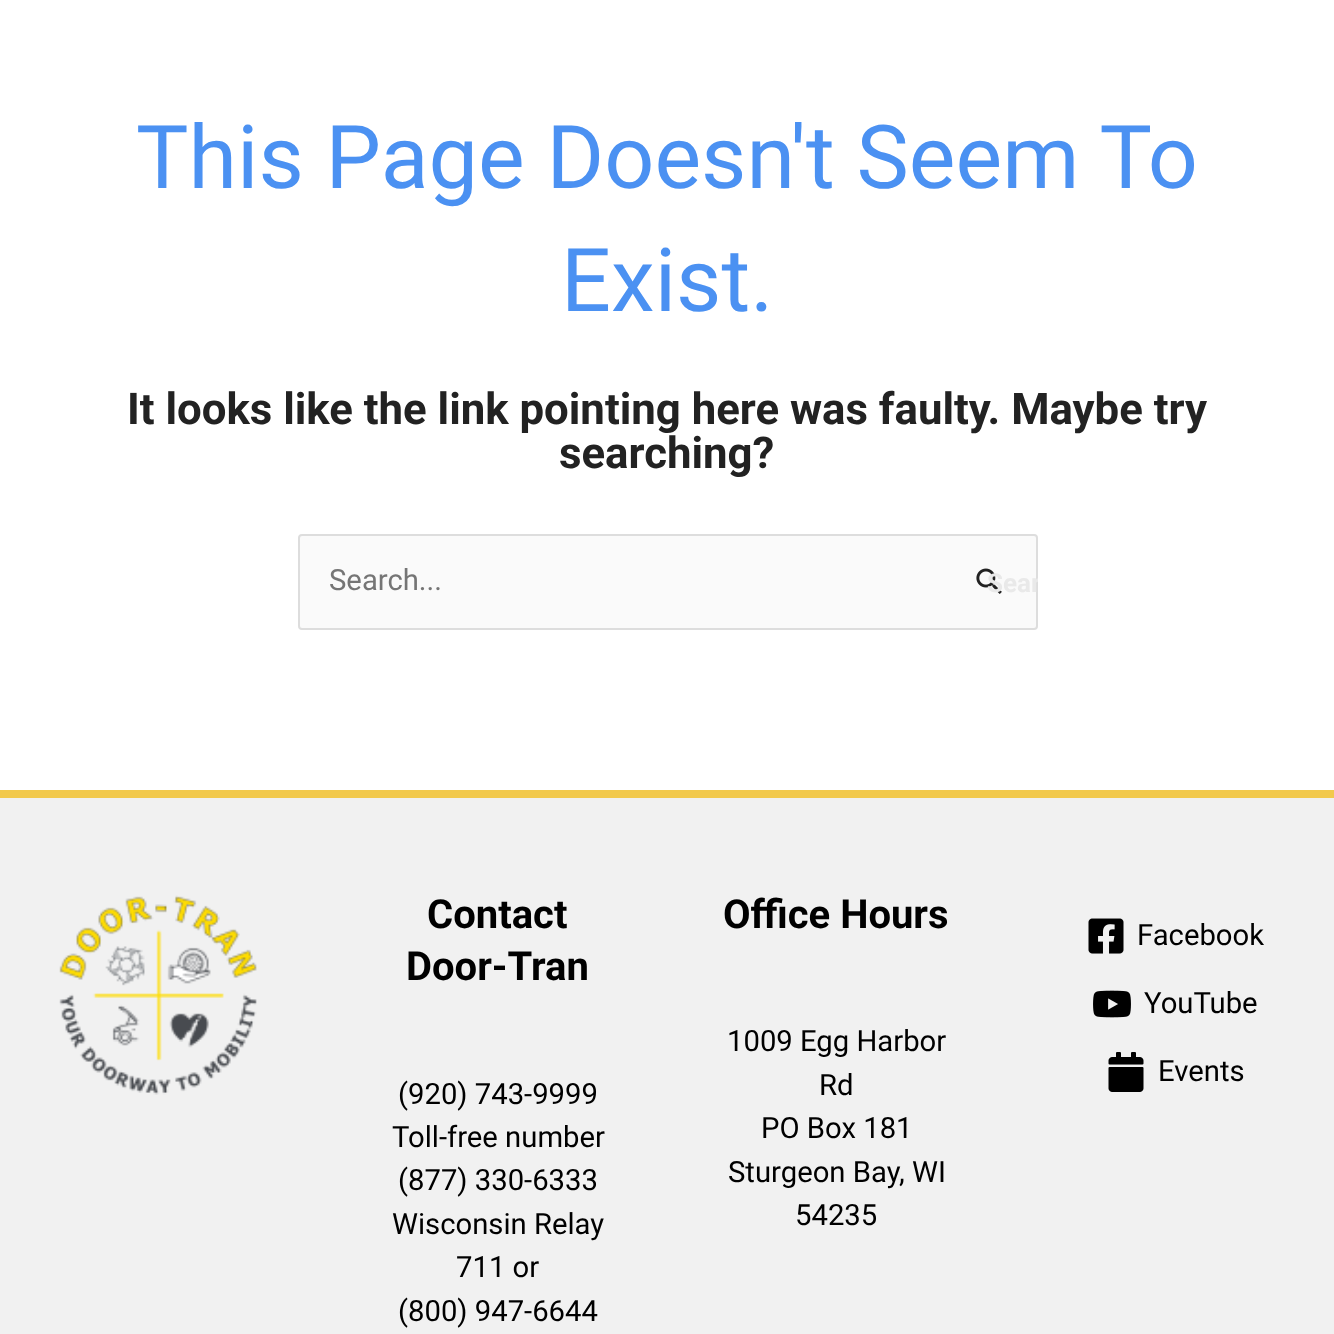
<svg xmlns="http://www.w3.org/2000/svg" width="1334" height="1334" viewBox="0 0 1334 1334">
  <style>
    .t1 { font: 88px Roboto; fill: #4b91f2; }
    .t2 { font: bold 43.75px Roboto; fill: #222; }
    .t3 { font: 29.25px Roboto; fill: #757575; }
    .t4 { font: bold 26px Roboto; fill: #e9e9e9; }
    .t5 { font: bold 40px Roboto; fill: #000; }
    .t6 { font: 29.25px Roboto; fill: #000; }
  </style>
  <defs>
    <clipPath id="clip1"><rect x="948" y="534" width="90" height="100" rx="4"/></clipPath>
  </defs>
  <rect width="100%" height="100%" fill="#fff"/>
  <text x="136" y="188" class="t1">This Page Doesn't Seem To</text>
  <text x="561" y="311" class="t1">Exist.</text>
  <text x="127" y="424" class="t2">It looks like the link pointing here was faulty. Maybe try</text>
  <text x="559" y="468" class="t2">searching?</text>
  <rect x="299" y="535" width="738" height="94" rx="3" fill="#fafafa" stroke="#ddd" stroke-width="2"/>
  <text x="329" y="590" class="t3">Search...</text>
  <image x="976" y="568" width="26" height="26" href="images/1.png"/>
  <g clip-path="url(#clip1)">
    <text x="987" y="592" class="t4">Sear</text>
  </g>
  <rect x="0" y="798" width="1334" height="536" fill="#f1f1f1"/>
  <rect x="0" y="790" width="1334" height="8" fill="#f2c94c"/>
  <image x="59" y="895" width="198" height="200" href="images/2.png"/>
  <text x="427" y="928" class="t5">Contact</text>
  <text x="406" y="980" class="t5">Door-Tran</text>
  <text x="398" y="1104" class="t6">(920) 743-9999</text>
  <text x="392" y="1147" class="t6">Toll-free number</text>
  <text x="398" y="1190" class="t6">(877) 330-6333</text>
  <text x="392" y="1234" class="t6">Wisconsin Relay</text>
  <text x="456" y="1277" class="t6">711 or</text>
  <text x="398" y="1321" class="t6">(800) 947-6644</text>
  <text x="723" y="928" class="t5">Office Hours</text>
  <text x="727" y="1051" class="t6">1009 Egg Harbor</text>
  <text x="819" y="1095" class="t6">Rd</text>
  <text x="761" y="1138" class="t6">PO Box 181</text>
  <text x="728" y="1182" class="t6">Sturgeon Bay, WI</text>
  <text x="795" y="1225" class="t6">54235</text>
  <image x="1088" y="918" width="36" height="36" href="images/3.png"/>
  <text x="1137" y="945" class="t6">Facebook</text>
  <image x="1093" y="990" width="38" height="28" href="images/4.png"/>
  <text x="1144" y="1013" class="t6">YouTube</text>
  <image x="1108" y="1052" width="36" height="40" href="images/5.png"/>
  <text x="1158" y="1081" class="t6">Events</text>
</svg>
